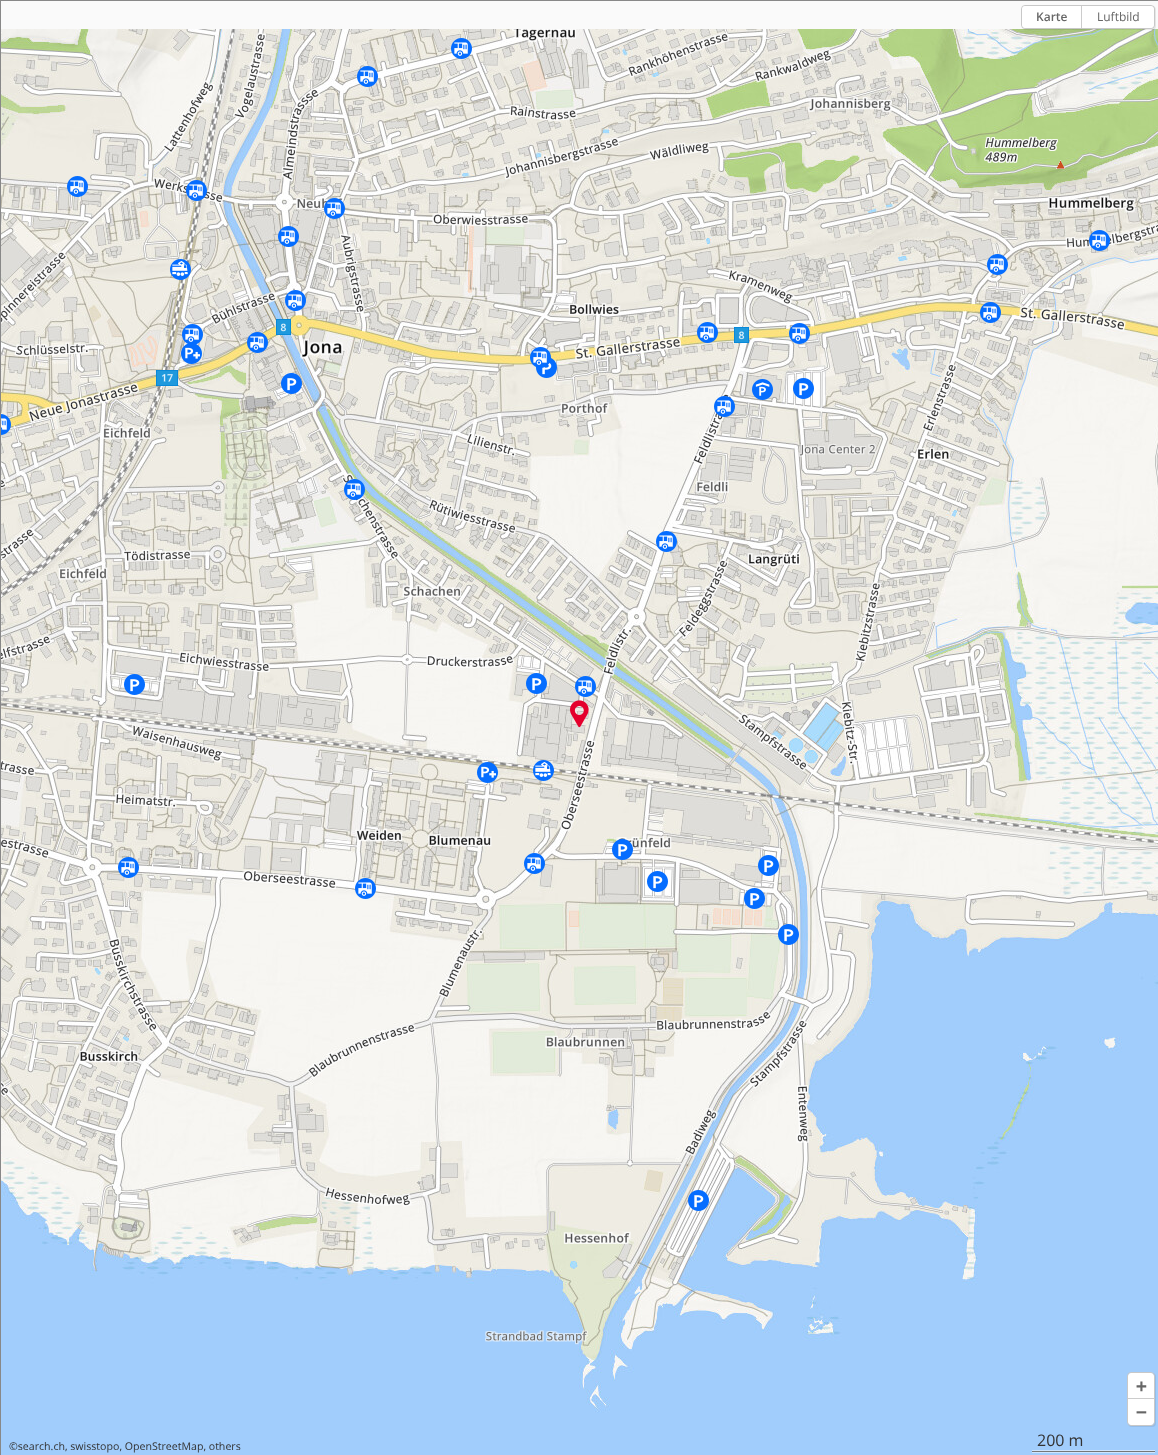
<svg xmlns="http://www.w3.org/2000/svg" width="1158" height="1455" viewBox="0 0 1158 1455">
  <style>
    .t1 { font: 600 12px Open Sans; fill: #666; }
    .t2 { font: 12px Open Sans; fill: #666; }
    .t3 { font: 10.6px Open Sans; fill: #333; }
    .t4 { font: bold 18px DejaVu Sans Mono; fill: #666; }
    .t5 { font: 16px Open Sans; fill: #333; }
  </style>
  <rect width="100%" height="100%" fill="#fafafa"/>
  <rect x="0.5" y="0.5" width="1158" height="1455" fill="none" stroke="#888"/>
  <image x="618" y="29" width="512" height="512" href="images/3.png"/>
  <image x="1130" y="29" width="28" height="512" href="images/4.png"/>
  <image x="618" y="29" width="512" height="512" href="images/14.png"/>
  <rect x="1022" y="6" width="134" height="24" rx="4" fill="#00000014" filter="blur(0.5px)"/>
  <rect x="1021.5" y="5.5" width="133" height="23" rx="3.5" fill="none" stroke="#c8c8c8"/>
  <path d="M1025 6H1082V28H1025C1023.5 28 1022 26.5 1022 25V9C1022 7.5 1023.5 6 1025 6Z" fill="#fff"/>
  <rect x="1081" y="6" width="1" height="22" fill="#ccc"/>
  <text x="1036" y="21" class="t1">Karte</text>
  <path d="M1082 6H1151C1152.5 6 1154 7.5 1154 9V25C1154 26.5 1152.5 28 1151 28H1082Z" fill="#fff"/>
  <text x="1097" y="21" class="t2">Luftbild</text>
  <image x="1" y="1053" width="105" height="402" href="images/9.png"/>
  <image x="106" y="1053" width="512" height="402" href="images/10.png"/>
  <text x="9" y="1450" class="t3">©search.ch, swisstopo, OpenStreetMap, others</text>
  <image x="618" y="1053" width="512" height="402" href="images/11.png"/>
  <rect x="1130" y="1053" width="28" height="402" fill="#a1cdfc"/>
  <rect x="1128" y="1373" width="28" height="54" rx="4" fill="#00000014" filter="blur(0.5px)"/>
  <rect x="1127.5" y="1372.5" width="27" height="53" rx="3.5" fill="none" stroke="#c8c8c8"/>
  <path d="M1131 1373H1151C1152.5 1373 1154 1374.5 1154 1376V1399H1128V1376C1128 1374.5 1129.5 1373 1131 1373Z" fill="#fff"/>
  <rect x="1128" y="1398" width="26" height="1" fill="#ccc"/>
  <text x="1136" y="1392" class="t4">+</text>
  <path d="M1128 1399H1154V1422C1154 1423.5 1152.5 1425 1151 1425H1131C1129.5 1425 1128 1423.5 1128 1422Z" fill="#fff"/>
  <text x="1136" y="1418" class="t4">−</text>
  <rect x="1032" y="1452" width="123" height="1" fill="#d0e6fe"/>
  <rect x="1032" y="1450" width="123" height="1" fill="#d0e6fe"/>
  <rect x="1032" y="1451" width="123" height="1" fill="#777"/>
  <text x="1037" y="1446" class="t5">200 m</text>
  <image x="1" y="29" width="105" height="512" href="images/1.png"/>
  <image x="106" y="29" width="512" height="512" href="images/2.png"/>
  <image x="1" y="541" width="105" height="512" href="images/5.png"/>
  <image x="106" y="541" width="512" height="512" href="images/6.png"/>
  <image x="618" y="541" width="512" height="512" href="images/7.png"/>
  <image x="1130" y="541" width="28" height="512" href="images/8.png"/>
  <image x="1" y="176" width="105" height="365" href="images/12.png"/>
  <image x="106" y="29" width="512" height="512" href="images/13.png"/>
  <image x="1130" y="199" width="28" height="44" href="images/15.png"/>
  <image x="1" y="541" width="105" height="512" href="images/16.png"/>
  <image x="106" y="541" width="512" height="512" href="images/17.png"/>
  <image x="618" y="541" width="264" height="512" href="images/18.png"/>
  <image x="1" y="1053" width="105" height="45" href="images/19.png"/>
  <image x="106" y="1053" width="512" height="292" href="images/20.png"/>
  <image x="618" y="1053" width="191" height="191" href="images/21.png"/>
  <image x="570" y="700" width="19" height="28" href="images/22.png"/>
</svg>
